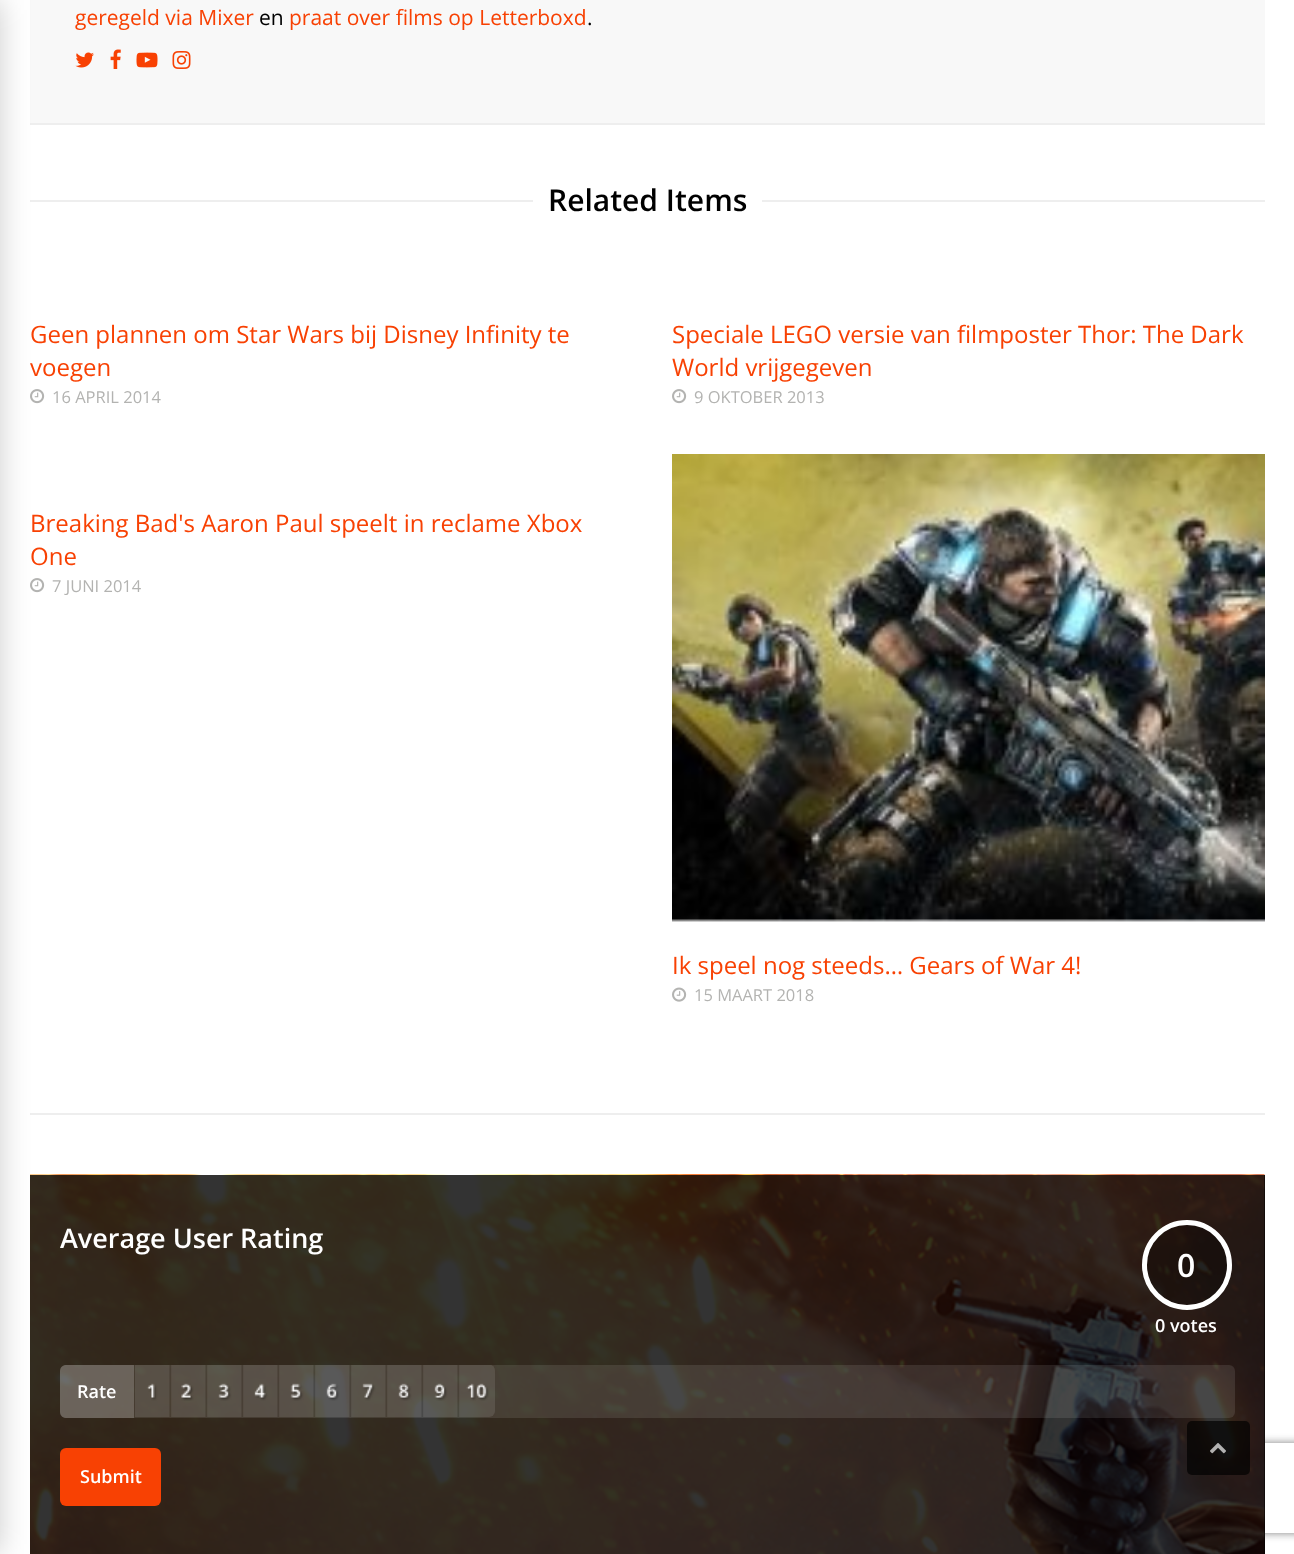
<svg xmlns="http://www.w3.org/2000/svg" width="1294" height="1554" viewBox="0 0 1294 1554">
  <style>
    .t1 { font: 21px Open Sans; fill: #f84103; }
    .t2 { font: 21px Open Sans; fill: #000; }
    .t3 { font: 600 30px Open Sans; fill: #000; }
    .t4 { font: 24px Open Sans; fill: #f84103; }
    .t5 { font: 16.5px Open Sans; fill: #b3b3b1; }
    .t6 { font: 600 27px Open Sans; fill: #fff; }
    .t7 { font: 600 32px Open Sans; fill: #fff; }
    .t8 { font: 600 18px Open Sans; fill: #fff; }
  </style>
  <defs>
    <clipPath id="clip1"><path d="M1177 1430H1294V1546H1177ZM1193 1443H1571C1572.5 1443 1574 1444.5 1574 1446V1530C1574 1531.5 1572.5 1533 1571 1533H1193C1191.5 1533 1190 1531.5 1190 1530V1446C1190 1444.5 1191.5 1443 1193 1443Z" clip-rule="evenodd"/></clipPath>
  </defs>
  <rect width="100%" height="100%" fill="#fff"/>
  <rect x="30" y="0" width="1235" height="123" fill="#f8f8f8"/>
  <rect x="30" y="123" width="1235" height="2" fill="#eee"/>
  <rect x="30" y="200" width="1235" height="2" fill="#eee"/>
  <image x="30" y="389" width="15" height="15" href="images/5.png"/>
  <image x="30" y="578" width="15" height="15" href="images/5.png"/>
  <rect x="30" y="1113" width="1235" height="2" fill="#eee"/>
  <g clip-path="url(#clip1)">
    <rect x="1190" y="1443" width="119" height="90" rx="3" fill="#808080" filter="blur(4px)"/>
  </g>
  <rect x="1264" y="1175" width="1" height="379" fill="#000"/>
  <image x="30" y="1174" width="1235" height="380" href="images/8.png"/>
  <rect x="30" y="1175" width="1235" height="379" fill="#000000cc"/>
  <rect x="-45" y="0" width="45" height="1554" fill="#00000033" filter="blur(15px)"/>
  <text x="75" y="25" class="t1">geregeld via Mixer</text>
  <text x="259" y="25" class="t2">en</text>
  <text x="289" y="25" class="t1">praat over films op Letterboxd</text>
  <text x="587" y="25" class="t2">.</text>
  <image x="75" y="52" width="19" height="16" href="images/1.png"/>
  <image x="110" y="49" width="11" height="20" href="images/2.png"/>
  <image x="136" y="52" width="22" height="16" href="images/3.png"/>
  <image x="172" y="51" width="19" height="18" href="images/4.png"/>
  <rect x="533" y="200" width="229" height="2" fill="#fff"/>
  <text x="548" y="211" class="t3">Related Items</text>
  <text x="30" y="343" class="t4">Geen plannen om Star Wars bij Disney Infinity te</text>
  <text x="30" y="376" class="t4">voegen</text>
  <text x="52" y="403" class="t5">16 APRIL 2014</text>
  <text x="672" y="343" class="t4">Speciale LEGO versie van filmposter Thor: The Dark</text>
  <text x="672" y="376" class="t4">World vrijgegeven</text>
  <image x="672" y="389" width="15" height="15" href="images/5.png"/>
  <text x="694" y="403" class="t5">9 OKTOBER 2013</text>
  <text x="30" y="532" class="t4">Breaking Bad's Aaron Paul speelt in reclame Xbox</text>
  <text x="30" y="565" class="t4">One</text>
  <text x="52" y="592" class="t5">7 JUNI 2014</text>
  <image x="672" y="454" width="593" height="468" href="images/6.png"/>
  <text x="672" y="974" class="t4">Ik speel nog steeds… Gears of War 4!</text>
  <image x="672" y="987" width="15" height="15" href="images/7.png"/>
  <text x="694" y="1001" class="t5">15 MAART 2018</text>
  <text x="60" y="1248" class="t6">Average User Rating</text>
  <circle cx="1187" cy="1265" r="42.5" fill="#0000004d" stroke="#fff" stroke-width="5"/>
  <text x="1177" y="1277" class="t7">0</text>
  <text x="1155" y="1332" class="t8">0 votes</text>
  <rect x="60" y="1365" width="1175" height="53" rx="6" fill="#ffffff1a"/>
  <path d="M66 1365H134V1418H66C62.5 1418 60 1415.5 60 1412V1371C60 1367.5 62.5 1365 66 1365Z" fill="#ffffff33"/>
  <text x="77" y="1398" class="t8">Rate</text>
  <image x="135" y="1365" width="360" height="52" href="images/9.png"/>
  <rect x="60" y="1448" width="101" height="58" rx="6" fill="#f84103"/>
  <text x="80" y="1483" class="t8">Submit</text>
  <rect x="1187" y="1421" width="63" height="54" rx="5" fill="#000000ad"/>
  <image x="1210" y="1443" width="16" height="11" href="images/10.png"/>
</svg>
